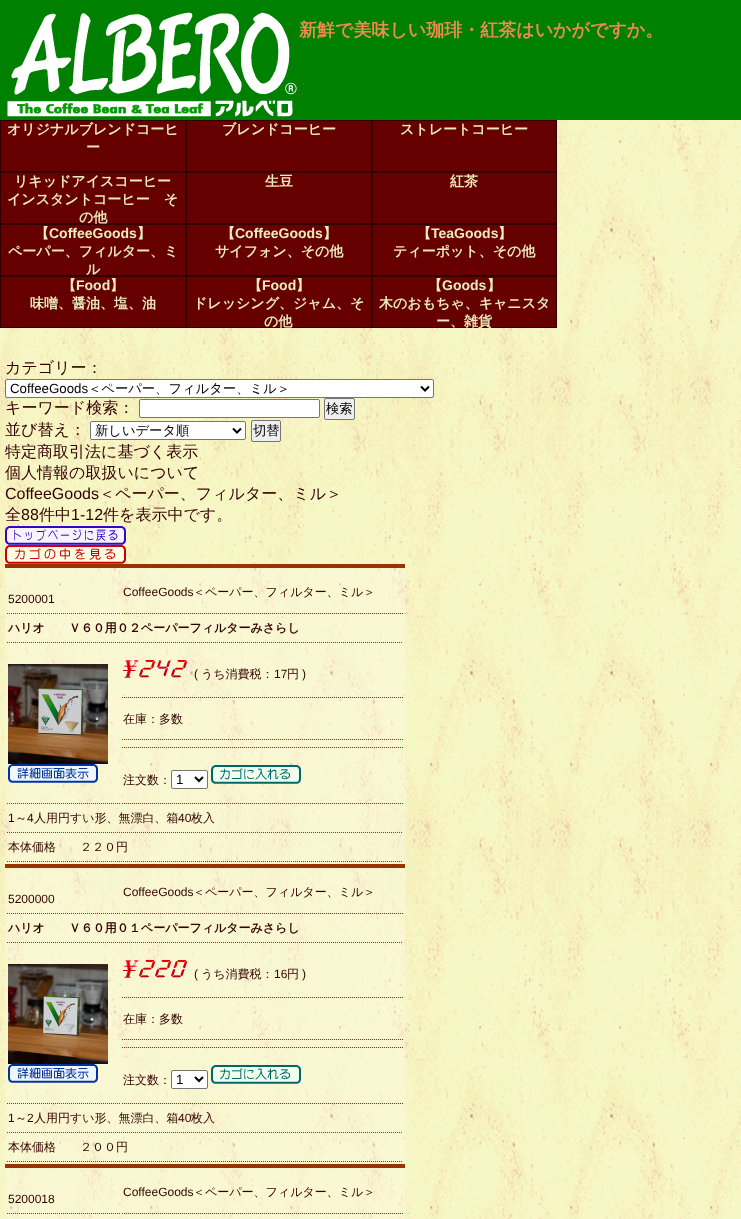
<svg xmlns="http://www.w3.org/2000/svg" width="741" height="1219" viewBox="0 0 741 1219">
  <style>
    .t1 { font: bold 18px WenQuanYi Zen Hei; fill: #ee8c4e; }
    .t2 { font: bold 14px WenQuanYi Zen Hei; fill: #edecba; }
    .t3 { font: bold 14px Liberation Sans; fill: #edecba; }
    .t4 { font: 500 16px WenQuanYi Zen Hei; fill: #300; }
    .t5 { font: 13.3px Liberation Sans; fill: #000; }
    .t6 { font: 500 13.3px WenQuanYi Zen Hei; fill: #000; }
    .t7 { font: 16px Liberation Sans; fill: #300; }
    .t8 { font: 12px Liberation Sans; fill: #300; }
    .t9 { font: 500 12px WenQuanYi Zen Hei; fill: #300; }
    .t10 { font: bold 12px WenQuanYi Zen Hei; fill: #300; }
  </style>
  <rect width="100%" height="100%" fill="#fff"/>
  <image x="0" y="120" width="741" height="1099" href="images/1.png"/>
  <rect x="0" y="0" width="741" height="120" fill="#008000"/>
  <image x="7" y="12" width="290" height="105" href="images/2.png"/>
  <text x="299" y="36" class="t1">新鮮で美味しい珈琲・紅茶はいかがですか。</text>
  <rect x="0.5" y="120.5" width="185" height="51" fill="none" stroke="#300"/>
  <rect x="1" y="121" width="184" height="50" fill="#600"/>
  <text x="7" y="134" class="t2">オリジナルブレンドコーヒ</text>
  <text x="86" y="152" class="t2">ー</text>
  <rect x="186.5" y="120.5" width="185" height="51" fill="none" stroke="#300"/>
  <rect x="187" y="121" width="184" height="50" fill="#600"/>
  <text x="222" y="134" class="t2">ブレンドコーヒー</text>
  <rect x="372.5" y="120.5" width="184" height="51" fill="none" stroke="#300"/>
  <rect x="373" y="121" width="183" height="50" fill="#600"/>
  <text x="400" y="134" class="t2">ストレートコーヒー</text>
  <rect x="0.5" y="172.5" width="185" height="51" fill="none" stroke="#300"/>
  <rect x="1" y="173" width="184" height="50" fill="#600"/>
  <text x="14" y="186" class="t2">リキッドアイスコーヒー</text>
  <text x="7" y="204" class="t2">インスタントコーヒー　そ</text>
  <text x="79" y="222" class="t2">の他</text>
  <rect x="186.5" y="172.5" width="185" height="51" fill="none" stroke="#300"/>
  <rect x="187" y="173" width="184" height="50" fill="#600"/>
  <text x="265" y="186" class="t2">生豆</text>
  <rect x="372.5" y="172.5" width="184" height="51" fill="none" stroke="#300"/>
  <rect x="373" y="173" width="183" height="50" fill="#600"/>
  <text x="450" y="186" class="t2">紅茶</text>
  <rect x="0.5" y="224.5" width="185" height="51" fill="none" stroke="#300"/>
  <rect x="1" y="225" width="184" height="50" fill="#600"/>
  <text x="35" y="238" class="t2">【</text>
  <text x="49" y="238" class="t3">CoffeeGoods</text>
  <text x="137" y="238" class="t2">】</text>
  <text x="8" y="256" class="t2">ペーパー、フィルター、ミ</text>
  <text x="86" y="274" class="t2">ル</text>
  <rect x="186.5" y="224.5" width="185" height="51" fill="none" stroke="#300"/>
  <rect x="187" y="225" width="184" height="50" fill="#600"/>
  <text x="221" y="238" class="t2">【</text>
  <text x="235" y="238" class="t3">CoffeeGoods</text>
  <text x="323" y="238" class="t2">】</text>
  <text x="215" y="256" class="t2">サイフォン、その他</text>
  <rect x="372.5" y="224.5" width="184" height="51" fill="none" stroke="#300"/>
  <rect x="373" y="225" width="183" height="50" fill="#600"/>
  <text x="417" y="238" class="t2">【</text>
  <text x="431" y="238" class="t3">TeaGoods</text>
  <text x="498" y="238" class="t2">】</text>
  <text x="393" y="256" class="t2">ティーポット、その他</text>
  <rect x="0.5" y="276.5" width="185" height="51" fill="none" stroke="#300"/>
  <rect x="1" y="277" width="184" height="50" fill="#600"/>
  <text x="62" y="290" class="t2">【</text>
  <text x="76" y="290" class="t3">Food</text>
  <text x="110" y="290" class="t2">】</text>
  <text x="30" y="308" class="t2">味噌、醤油、塩、油</text>
  <rect x="186.5" y="276.5" width="185" height="51" fill="none" stroke="#300"/>
  <rect x="187" y="277" width="184" height="50" fill="#600"/>
  <text x="248" y="290" class="t2">【</text>
  <text x="262" y="290" class="t3">Food</text>
  <text x="296" y="290" class="t2">】</text>
  <text x="193" y="308" class="t2">ドレッシング、ジャム、そ</text>
  <text x="264" y="326" class="t2">の他</text>
  <rect x="372.5" y="276.5" width="184" height="51" fill="none" stroke="#300"/>
  <rect x="373" y="277" width="183" height="50" fill="#600"/>
  <text x="428" y="290" class="t2">【</text>
  <text x="442" y="290" class="t3">Goods</text>
  <text x="487" y="290" class="t2">】</text>
  <text x="379" y="308" class="t2">木のおもちゃ、キャニスタ</text>
  <text x="436" y="326" class="t2">ー、雑貨</text>
  <text x="5" y="373" class="t4">カテゴリー：</text>
  <rect x="5.5" y="379.5" width="428" height="18" rx="1.5" fill="#fff" stroke="#767676"/>
  <path d="M421 386.5L425 390.5L429 386.5" fill="none" stroke="#000" stroke-width="2"/>
  <text x="10" y="393" class="t5">CoffeeGoods</text>
  <text x="88" y="393" class="t6">＜ペーパー、フィルター、ミル＞</text>
  <text x="5" y="413" class="t4">キーワード検索：</text>
  <rect x="139.5" y="399.5" width="180" height="18" rx="1.5" fill="#fff" stroke="#767676"/>
  <rect x="324.5" y="398.5" width="30" height="21" rx="1.5" fill="#efefef" stroke="#767676"/>
  <text x="326" y="413" class="t6">検索</text>
  <text x="5" y="435" class="t4">並び替え：</text>
  <rect x="90.5" y="421.5" width="155" height="18" rx="1.5" fill="#fff" stroke="#767676"/>
  <path d="M233 428.5L237 432.5L241 428.5" fill="none" stroke="#000" stroke-width="2"/>
  <text x="95" y="435" class="t6">新しいデータ順</text>
  <rect x="251.5" y="420.5" width="29" height="21" rx="1.5" fill="#efefef" stroke="#767676"/>
  <text x="253" y="435" class="t6">切替</text>
  <text x="5" y="457" class="t4">特定商取引法に基づく表示</text>
  <text x="5" y="478" class="t4">個人情報の取扱いについて</text>
  <text x="5" y="499" class="t7">CoffeeGoods</text>
  <text x="99" y="499" class="t4">＜ペーパー、フィルター、ミル＞</text>
  <text x="5" y="520" class="t4">全</text>
  <text x="21" y="520" class="t7">88</text>
  <text x="39" y="520" class="t4">件中</text>
  <text x="71" y="520" class="t7">1-12</text>
  <text x="103" y="520" class="t4">件を表示中です。</text>
  <image x="5" y="526" width="121" height="19" href="images/3.png"/>
  <image x="5" y="545" width="121" height="19" href="images/4.png"/>
  <rect x="5" y="568" width="400" height="296" fill="#ffffff40"/>
  <rect x="5" y="564" width="400" height="4" fill="#930"/>
  <path d="M122 613.5H403" fill="none" stroke="#930" stroke-dasharray="1 1"/>
  <text x="123" y="596" class="t8">CoffeeGoods</text>
  <text x="193" y="596" class="t9">＜ペーパー、フィルター、ミル＞</text>
  <path d="M7 613.5H120" fill="none" stroke="#930" stroke-dasharray="1 1"/>
  <text x="8" y="603" class="t8">5200001</text>
  <path d="M7 642.5H403" fill="none" stroke="#930" stroke-dasharray="1 1"/>
  <text x="8" y="632" class="t10">ハリオ　　Ｖ６０用０２ペーパーフィルターみさらし</text>
  <path d="M7 803.5H120" fill="none" stroke="#930" stroke-dasharray="1 1"/>
  <image x="8" y="664" width="100" height="100" href="images/5.png"/>
  <image x="8" y="764" width="90" height="19" href="images/6.png"/>
  <path d="M122 697.5H403" fill="none" stroke="#930" stroke-dasharray="1 1"/>
  <image x="123" y="660" width="16" height="18" href="images/7.png"/>
  <image x="139" y="660" width="16" height="18" href="images/8.png"/>
  <image x="157" y="660" width="14" height="17" href="images/9.png"/>
  <image x="171" y="660" width="16" height="18" href="images/10.png"/>
  <text x="194" y="678" class="t8">(</text>
  <text x="201" y="678" class="t9">うち消費税：</text>
  <text x="274" y="678" class="t8">17</text>
  <text x="287" y="678" class="t9">円</text>
  <text x="302" y="678" class="t8">)</text>
  <path d="M122 739.5H403" fill="none" stroke="#930" stroke-dasharray="1 1"/>
  <text x="123" y="723" class="t9">在庫：多数</text>
  <path d="M122 747.5H403" fill="none" stroke="#930" stroke-dasharray="1 1"/>
  <path d="M122 803.5H403" fill="none" stroke="#930" stroke-dasharray="1 1"/>
  <text x="123" y="784" class="t9">注文数：</text>
  <rect x="171.5" y="770.5" width="36" height="18" rx="1.5" fill="#fff" stroke="#767676"/>
  <path d="M195 777L199 781L203 777" fill="none" stroke="#000" stroke-width="2"/>
  <text x="176" y="784" class="t5">1</text>
  <image x="211" y="765" width="90" height="19" href="images/11.png"/>
  <path d="M7 832.5H403" fill="none" stroke="#930" stroke-dasharray="1 1"/>
  <text x="8" y="822" class="t8">1</text>
  <text x="15" y="822" class="t9">～</text>
  <text x="27" y="822" class="t8">4</text>
  <text x="34" y="822" class="t9">人用円すい形、無漂白、箱</text>
  <text x="178" y="822" class="t8">40</text>
  <text x="191" y="822" class="t9">枚入</text>
  <path d="M7 861.5H403" fill="none" stroke="#930" stroke-dasharray="1 1"/>
  <text x="8" y="851" class="t9">本体価格　　２２０円</text>
  <rect x="5" y="868" width="400" height="296" fill="#ffffff40"/>
  <rect x="5" y="864" width="400" height="4" fill="#930"/>
  <path d="M122 913.5H403" fill="none" stroke="#930" stroke-dasharray="1 1"/>
  <text x="123" y="896" class="t8">CoffeeGoods</text>
  <text x="193" y="896" class="t9">＜ペーパー、フィルター、ミル＞</text>
  <path d="M7 913.5H120" fill="none" stroke="#930" stroke-dasharray="1 1"/>
  <text x="8" y="903" class="t8">5200000</text>
  <path d="M7 942.5H403" fill="none" stroke="#930" stroke-dasharray="1 1"/>
  <text x="8" y="932" class="t10">ハリオ　　Ｖ６０用０１ペーパーフィルターみさらし</text>
  <path d="M7 1103.5H120" fill="none" stroke="#930" stroke-dasharray="1 1"/>
  <image x="8" y="964" width="100" height="100" href="images/12.png"/>
  <image x="8" y="1064" width="90" height="19" href="images/13.png"/>
  <path d="M122 997.5H403" fill="none" stroke="#930" stroke-dasharray="1 1"/>
  <image x="123" y="960" width="16" height="18" href="images/14.png"/>
  <image x="139" y="960" width="16" height="18" href="images/15.png"/>
  <image x="155" y="960" width="16" height="18" href="images/16.png"/>
  <image x="171" y="960" width="16" height="18" href="images/17.png"/>
  <text x="194" y="978" class="t8">(</text>
  <text x="201" y="978" class="t9">うち消費税：</text>
  <text x="274" y="978" class="t8">16</text>
  <text x="287" y="978" class="t9">円</text>
  <text x="302" y="978" class="t8">)</text>
  <path d="M122 1039.5H403" fill="none" stroke="#930" stroke-dasharray="1 1"/>
  <text x="123" y="1023" class="t9">在庫：多数</text>
  <path d="M122 1047.5H403" fill="none" stroke="#930" stroke-dasharray="1 1"/>
  <path d="M122 1103.5H403" fill="none" stroke="#930" stroke-dasharray="1 1"/>
  <text x="123" y="1084" class="t9">注文数：</text>
  <rect x="171.5" y="1070.5" width="36" height="18" rx="1.5" fill="#fff" stroke="#767676"/>
  <path d="M195 1077L199 1081L203 1077" fill="none" stroke="#000" stroke-width="2"/>
  <text x="176" y="1084" class="t5">1</text>
  <image x="211" y="1065" width="90" height="19" href="images/18.png"/>
  <path d="M7 1132.5H403" fill="none" stroke="#930" stroke-dasharray="1 1"/>
  <text x="8" y="1122" class="t8">1</text>
  <text x="15" y="1122" class="t9">～</text>
  <text x="27" y="1122" class="t8">2</text>
  <text x="34" y="1122" class="t9">人用円すい形、無漂白、箱</text>
  <text x="178" y="1122" class="t8">40</text>
  <text x="191" y="1122" class="t9">枚入</text>
  <path d="M7 1161.5H403" fill="none" stroke="#930" stroke-dasharray="1 1"/>
  <text x="8" y="1151" class="t9">本体価格　　２００円</text>
  <rect x="5" y="1168" width="400" height="51" fill="#ffffff40"/>
  <rect x="5" y="1164" width="400" height="4" fill="#930"/>
  <path d="M122 1213.5H403" fill="none" stroke="#930" stroke-dasharray="1 1"/>
  <text x="123" y="1196" class="t8">CoffeeGoods</text>
  <text x="193" y="1196" class="t9">＜ペーパー、フィルター、ミル＞</text>
  <path d="M7 1213.5H120" fill="none" stroke="#930" stroke-dasharray="1 1"/>
  <text x="8" y="1203" class="t8">5200018</text>
</svg>
